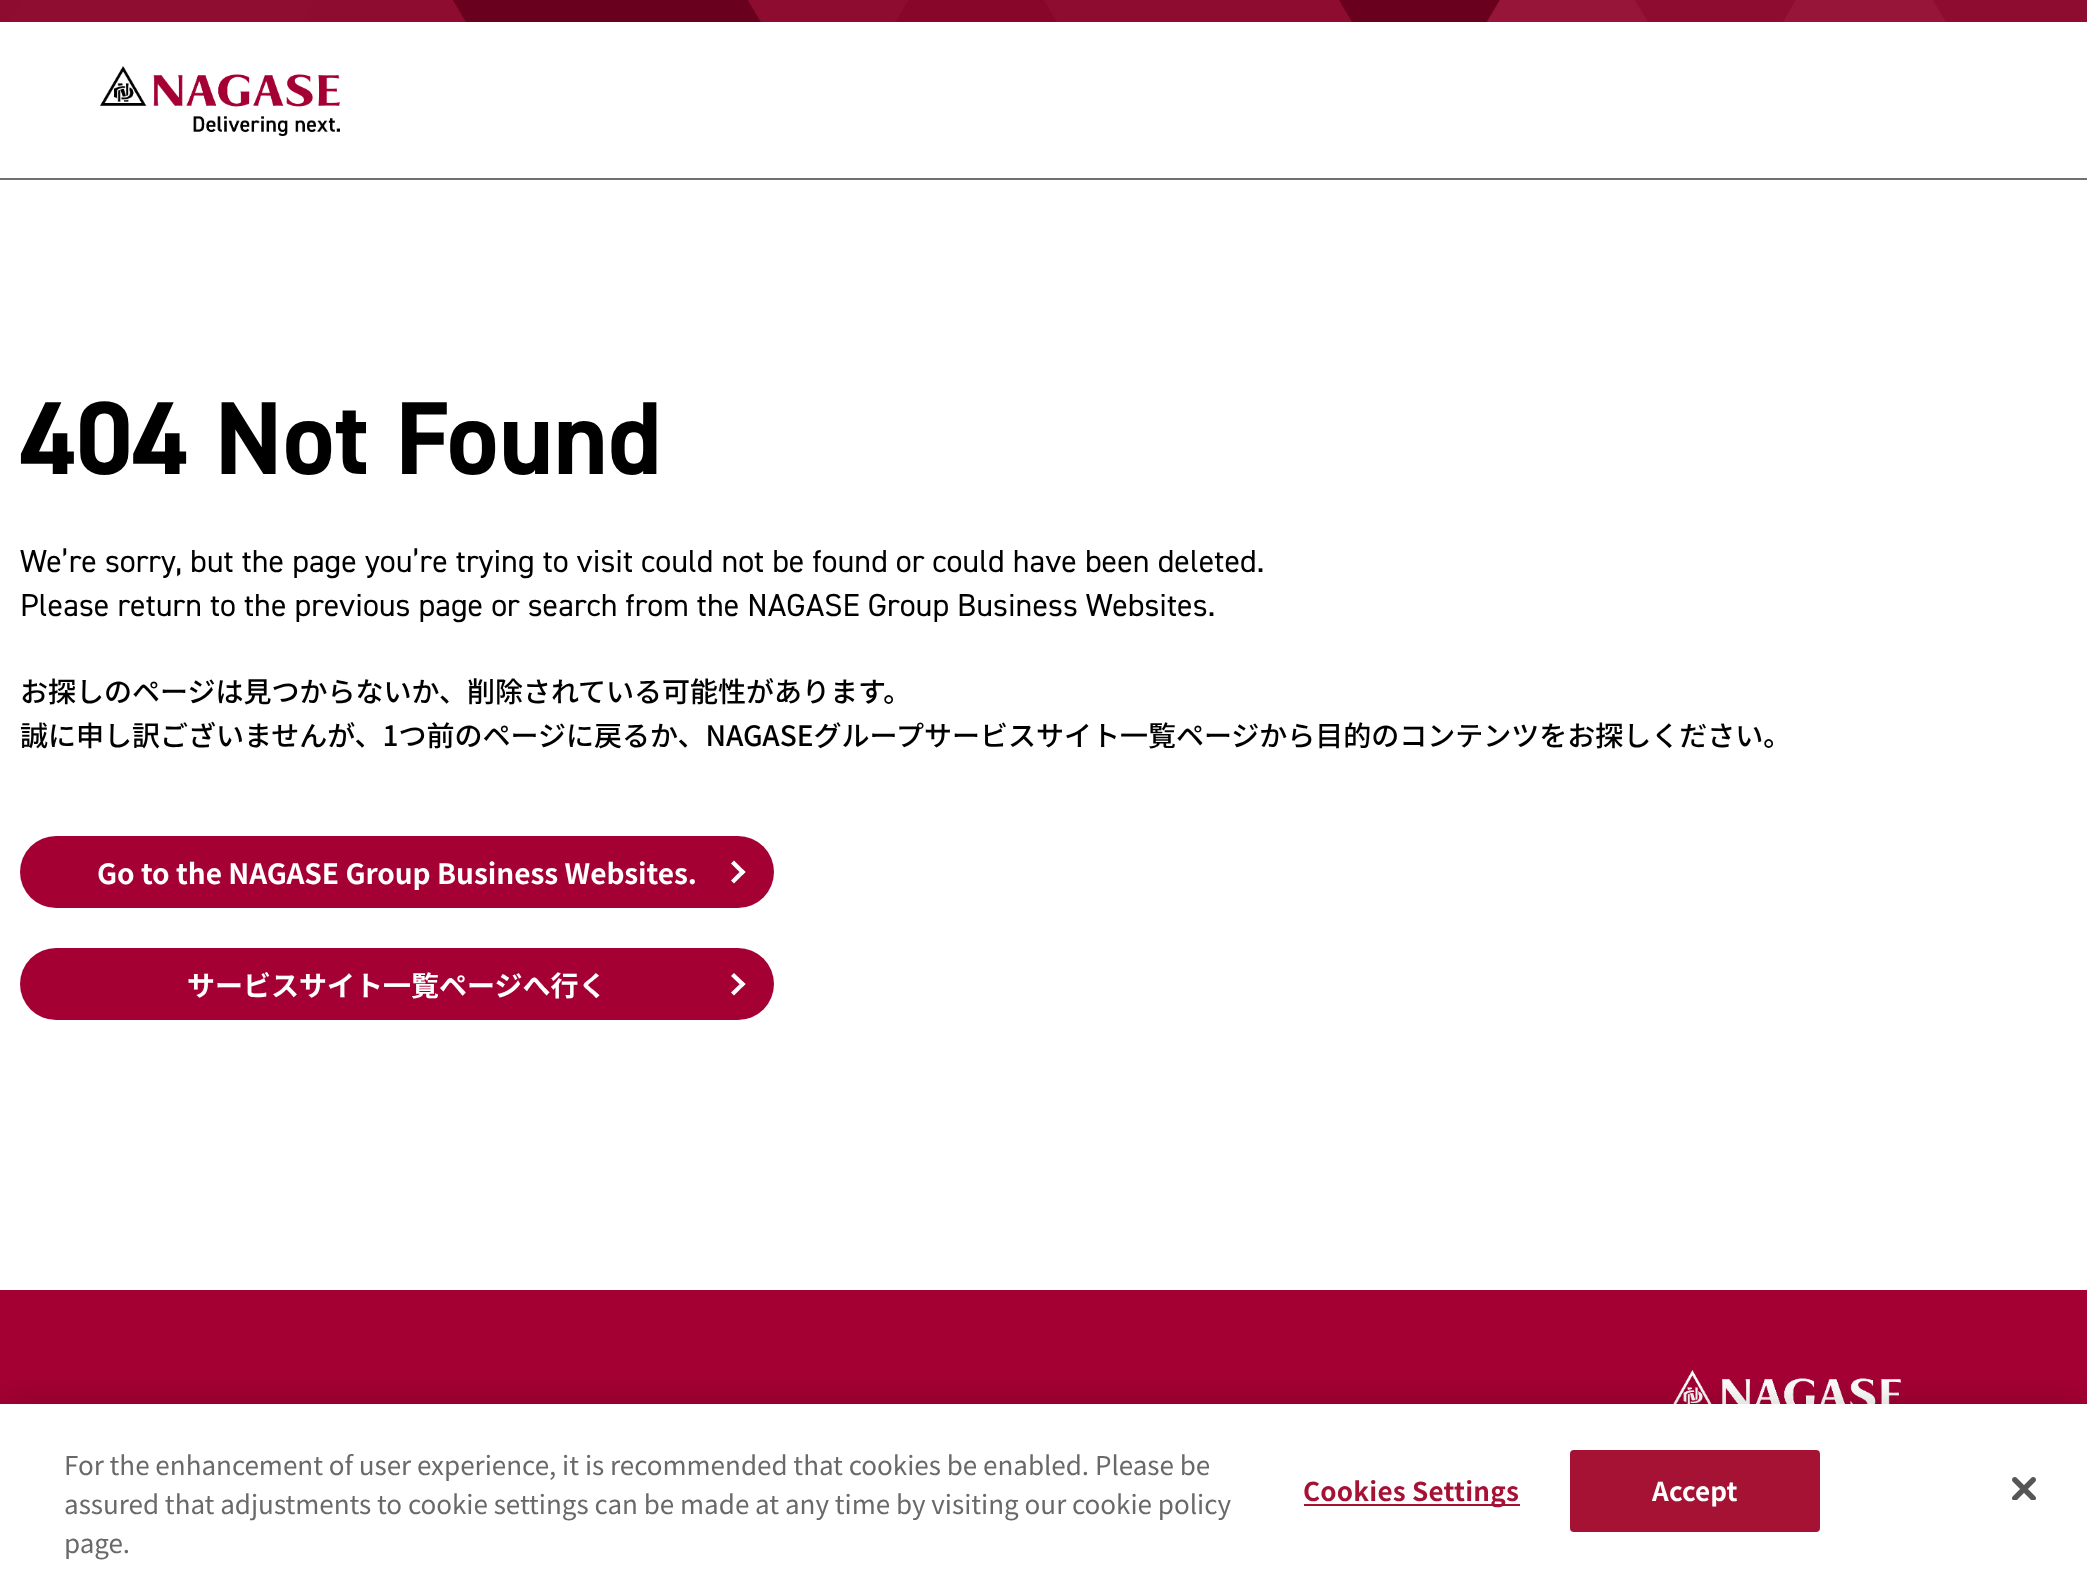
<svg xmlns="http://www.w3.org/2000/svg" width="2087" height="1581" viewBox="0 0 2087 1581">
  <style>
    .t1 { font: bold 104px 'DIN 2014'; fill: #000; }
    .t2 { font: 32px 'DIN 2014'; fill: #000; }
    .t3 { font: 500 28px Noto Sans JP; fill: #000; }
    .t4 { font: bold 28px Noto Sans JP; fill: #fff; }
    .t5 { font: 26px Noto Sans JP; fill: #696969; }
    .t6 { font: bold 26px Noto Sans JP; letter-spacing: 0.25px; fill: #a51234; }
    .t7 { font: bold 26px Noto Sans JP; letter-spacing: 0.25px; fill: #fff; }
  </style>
  <rect width="100%" height="100%" fill="#fff"/>
  <rect x="0" y="178" width="2087" height="2" fill="#707070"/>
  <image x="0" y="0" width="2087" height="22" href="images/1.png"/>
  <image x="100" y="66" width="240" height="70" href="images/2.png"/>
  <text x="20" y="474" class="t1">404 Not Found</text>
  <text x="20" y="572" class="t2">We’re sorry, but the page you’re trying to visit could not be found or could have been deleted.</text>
  <text x="20" y="616" class="t2">Please return to the previous page or search from the NAGASE Group Business Websites.</text>
  <text x="20" y="702" class="t3">お探しのページは見つからないか、削除されている可能性があります。</text>
  <text x="20" y="746" class="t3">誠に申し訳ございませんが、1つ前のページに戻るか、NAGASEグループサービスサイト一覧ページから目的のコンテンツをお探しください。</text>
  <rect x="20" y="836" width="754" height="72" rx="36" fill="#a50034"/>
  <text x="97" y="884" class="t4">Go to the NAGASE Group Business Websites.</text>
  <path d="M734 860.5L745.5 872L742.5 875L731 863.5Z" fill="#fff"/>
  <path d="M742.5 869L745.5 872L734 883.5L731 880.5Z" fill="#fff"/>
  <rect x="20" y="948" width="754" height="72" rx="36" fill="#a50034"/>
  <text x="187" y="996" class="t4">サービスサイト一覧ページへ行く</text>
  <path d="M734 973L745.5 984L742.5 987L731 976Z" fill="#fff"/>
  <path d="M742.5 981.5L745.5 984L734 995.5L731 992.5Z" fill="#fff"/>
  <rect x="0" y="1290" width="2087" height="114" fill="#a50034"/>
  <image x="1673" y="1370" width="229" height="34" href="images/3.png"/>
  <rect x="0" y="1404" width="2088" height="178" fill="#00000033" filter="blur(18px)"/>
  <rect x="0" y="1404" width="2087" height="177" fill="#fff"/>
  <text x="64" y="1475" class="t5">For the enhancement of user experience, it is recommended that cookies be enabled. Please be</text>
  <text x="64" y="1514" class="t5">assured that adjustments to cookie settings can be made at any time by visiting our cookie policy</text>
  <text x="64" y="1553" class="t5">page.</text>
  <rect x="1304" y="1504" width="216" height="2" fill="#a51234"/>
  <text x="1303" y="1501" class="t6">Cookies Settings</text>
  <rect x="1571" y="1451" width="248" height="80" rx="3" fill="#a51234" stroke="#a51234" stroke-width="2"/>
  <text x="1652" y="1501" class="t7">Accept</text>
  <image x="2012" y="1477" width="24" height="23" href="images/4.png"/>
</svg>
